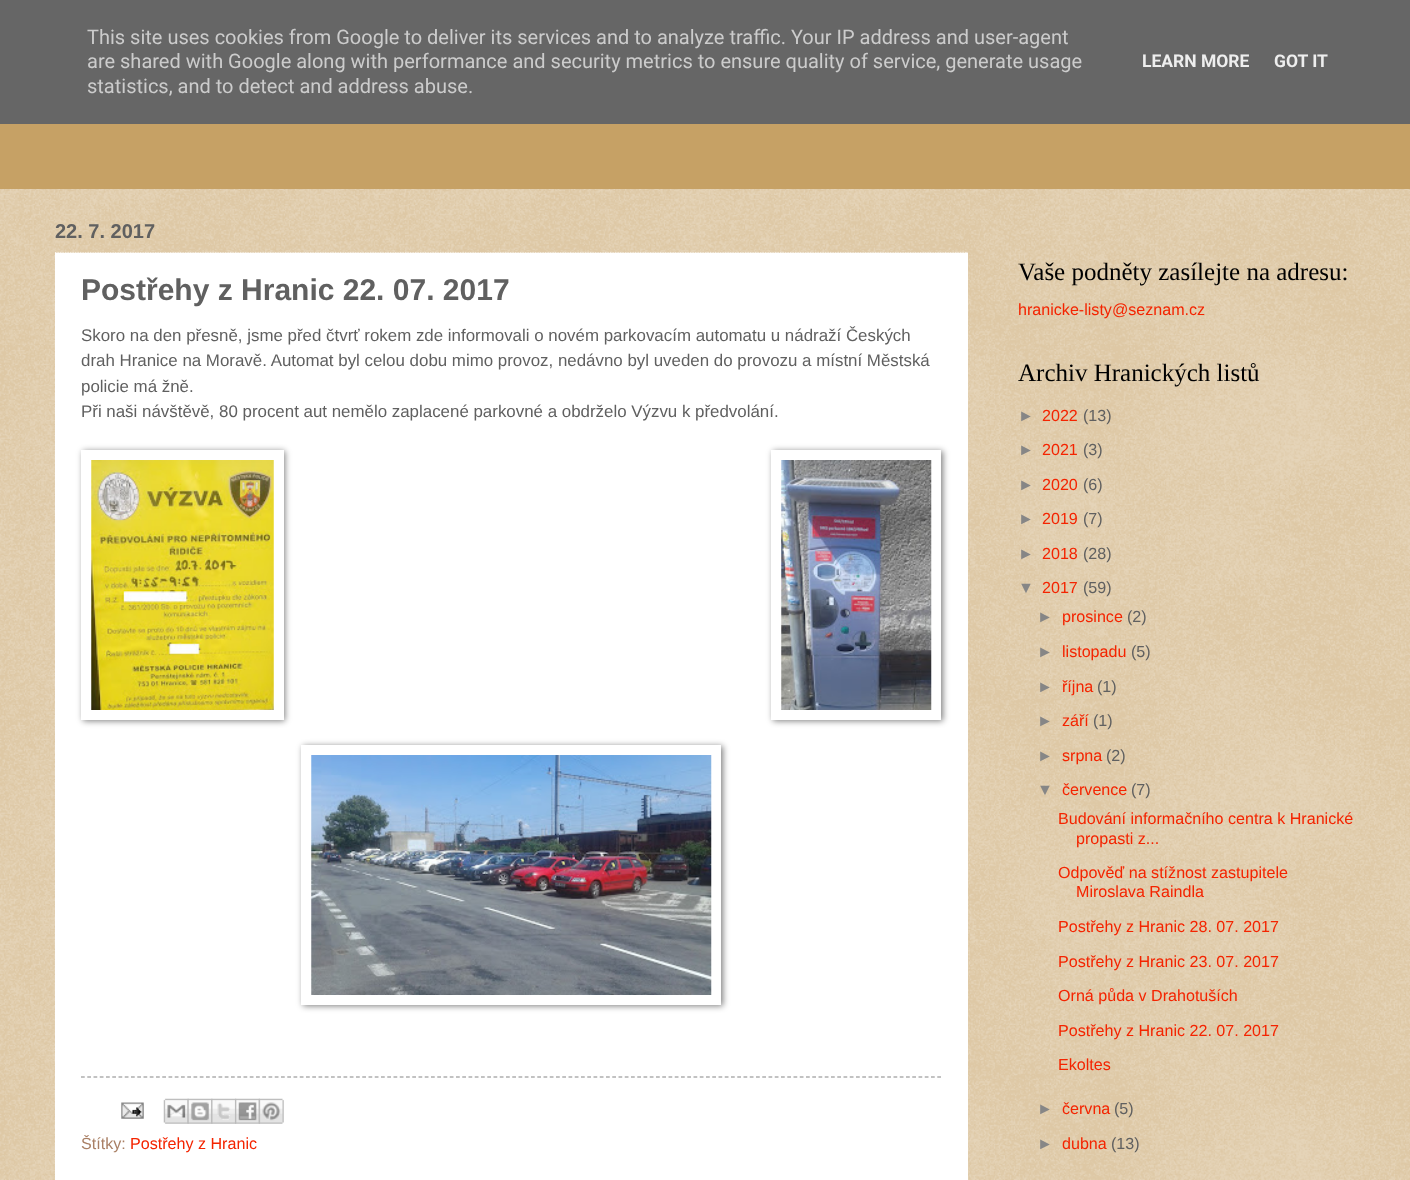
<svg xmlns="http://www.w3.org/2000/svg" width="1410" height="1180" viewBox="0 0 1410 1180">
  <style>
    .t1 { font: 20px Roboto; fill: #ccc; }
    .t2 { font: bold 17.5px Roboto; fill: #eee; }
    .t3 { font: bold 20px Liberation Sans; fill: #606060; }
    .t4 { font: bold 30px Liberation Sans; fill: #606060; }
    .t5 { font: 16.9px Liberation Sans; fill: #606060; }
    .t6 { font: 16.1px Liberation Sans; fill: #a97f64; }
    .t7 { font: 16.1px Liberation Sans; fill: #f42400; }
    .t8 { font: 25px Liberation Serif; fill: #000; }
    .t9 { font: 16.1px Liberation Sans; fill: #868686; }
    .t10 { font: 16.1px Liberation Sans; fill: #606060; }
  </style>
  <rect width="100%" height="100%" fill="#c6a165"/>
  <image x="0" y="189" width="1410" height="991" href="images/1.png"/>
  <rect x="0" y="0" width="1410" height="124" fill="#666"/>
  <text x="87" y="44" class="t1">This site uses cookies from Google to deliver its services and to analyze traffic. Your IP address and user-agent</text>
  <text x="87" y="68" class="t1">are shared with Google along with performance and security metrics to ensure quality of service, generate usage</text>
  <text x="87" y="93" class="t1">statistics, and to detect and address abuse.</text>
  <text x="1142" y="67" class="t2">LEARN MORE</text>
  <text x="1274" y="67" class="t2">GOT IT</text>
  <text x="55" y="238" class="t3">22. 7. 2017</text>
  <rect x="55" y="253" width="913" height="927" fill="#fff"/>
  <image x="55" y="252" width="913" height="1" href="images/2.png"/>
  <path d="M55 253H967.5" fill="none" stroke="#fff" stroke-width="1.2" stroke-dasharray="1.25 1.25"/>
  <path d="M967 252.5V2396" fill="none" stroke="#fff" stroke-width="1.2" stroke-dasharray="1.25 1.25"/>
  <path d="M55.5 252.5V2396" fill="none" stroke="#fff" stroke-width="1.2" stroke-dasharray="1.25 1.25"/>
  <text x="81" y="300" class="t4">Postřehy z Hranic 22. 07. 2017</text>
  <text x="81" y="341" class="t5">Skoro na den přesně, jsme před čtvrť rokem zde informovali o novém parkovacím automatu u nádraží Českých</text>
  <text x="81" y="366" class="t5">drah Hranice na Moravě. Automat byl celou dobu mimo provoz, nedávno byl uveden do provozu a místní Městská</text>
  <text x="81" y="392" class="t5">policie má žně.</text>
  <text x="81" y="417" class="t5">Při naši návštěvě, 80 procent aut nemělo zaplacené parkovné a obdrželo Výzvu k předvolání.</text>
  <rect x="83" y="451" width="202" height="270" fill="#00000080" filter="blur(3px)"/>
  <rect x="81" y="450" width="203" height="270" fill="#fff"/>
  <image x="91" y="460" width="183" height="250" href="images/3.png"/>
  <rect x="773" y="451" width="170" height="270" fill="#00000080" filter="blur(3px)"/>
  <rect x="771" y="450" width="170" height="270" fill="#fff"/>
  <image x="781" y="460" width="151" height="250" href="images/4.png"/>
  <rect x="303" y="746" width="420" height="260" fill="#00000080" filter="blur(3px)"/>
  <rect x="301" y="745" width="420" height="260" fill="#fff"/>
  <image x="311" y="755" width="401" height="240" href="images/5.png"/>
  <path d="M81 1077H941" fill="none" stroke="#868686" stroke-width="1.2" stroke-dasharray="3.75 2.5"/>
  <image x="121" y="1102" width="23" height="17" href="images/6.png"/>
  <image x="163" y="1098" width="26" height="26" href="images/7.png"/>
  <image x="187" y="1098" width="26" height="26" href="images/8.png"/>
  <image x="211" y="1098" width="26" height="26" href="images/9.png"/>
  <image x="235" y="1098" width="25" height="26" href="images/10.png"/>
  <image x="258" y="1098" width="26" height="26" href="images/11.png"/>
  <text x="81" y="1149" class="t6">Štítky:</text>
  <text x="130" y="1149" class="t7">Postřehy z Hranic</text>
  <text x="1018" y="280" class="t8">Vaše podněty zasílejte na adresu:</text>
  <text x="1018" y="315" class="t7">hranicke-listy@seznam.cz</text>
  <text x="1018" y="381" class="t8">Archiv Hranických listů</text>
  <text x="1018" y="421" class="t9">►</text>
  <text x="1042" y="421" class="t7">2022</text>
  <text x="1083" y="421" class="t10">(13)</text>
  <text x="1018" y="455" class="t9">►</text>
  <text x="1042" y="455" class="t7">2021</text>
  <text x="1083" y="455" class="t10">(3)</text>
  <text x="1018" y="490" class="t9">►</text>
  <text x="1042" y="490" class="t7">2020</text>
  <text x="1083" y="490" class="t10">(6)</text>
  <text x="1018" y="524" class="t9">►</text>
  <text x="1042" y="524" class="t7">2019</text>
  <text x="1083" y="524" class="t10">(7)</text>
  <text x="1018" y="559" class="t9">►</text>
  <text x="1042" y="559" class="t7">2018</text>
  <text x="1083" y="559" class="t10">(28)</text>
  <text x="1018" y="593" class="t9">▼</text>
  <text x="1042" y="593" class="t7">2017</text>
  <text x="1083" y="593" class="t10">(59)</text>
  <text x="1037" y="622" class="t9">►</text>
  <text x="1062" y="622" class="t7">prosince</text>
  <text x="1127" y="622" class="t10">(2)</text>
  <text x="1037" y="657" class="t9">►</text>
  <text x="1062" y="657" class="t7">listopadu</text>
  <text x="1131" y="657" class="t10">(5)</text>
  <text x="1037" y="692" class="t9">►</text>
  <text x="1062" y="692" class="t7">října</text>
  <text x="1097" y="692" class="t10">(1)</text>
  <text x="1037" y="726" class="t9">►</text>
  <text x="1062" y="726" class="t7">září</text>
  <text x="1093" y="726" class="t10">(1)</text>
  <text x="1037" y="761" class="t9">►</text>
  <text x="1062" y="761" class="t7">srpna</text>
  <text x="1106" y="761" class="t10">(2)</text>
  <text x="1037" y="795" class="t9">▼</text>
  <text x="1062" y="795" class="t7">července</text>
  <text x="1131" y="795" class="t10">(7)</text>
  <text x="1058" y="824" class="t7">Budování informačního centra k Hranické</text>
  <text x="1076" y="844" class="t7">propasti z...</text>
  <text x="1058" y="878" class="t7">Odpověď na stížnost zastupitele</text>
  <text x="1076" y="897" class="t7">Miroslava Raindla</text>
  <text x="1058" y="932" class="t7">Postřehy z Hranic 28. 07. 2017</text>
  <text x="1058" y="967" class="t7">Postřehy z Hranic 23. 07. 2017</text>
  <text x="1058" y="1001" class="t7">Orná půda v Drahotuších</text>
  <text x="1058" y="1036" class="t7">Postřehy z Hranic 22. 07. 2017</text>
  <text x="1058" y="1070" class="t7">Ekoltes</text>
  <text x="1037" y="1114" class="t9">►</text>
  <text x="1062" y="1114" class="t7">června</text>
  <text x="1114" y="1114" class="t10">(5)</text>
  <text x="1037" y="1149" class="t9">►</text>
  <text x="1062" y="1149" class="t7">dubna</text>
  <text x="1111" y="1149" class="t10">(13)</text>
</svg>
